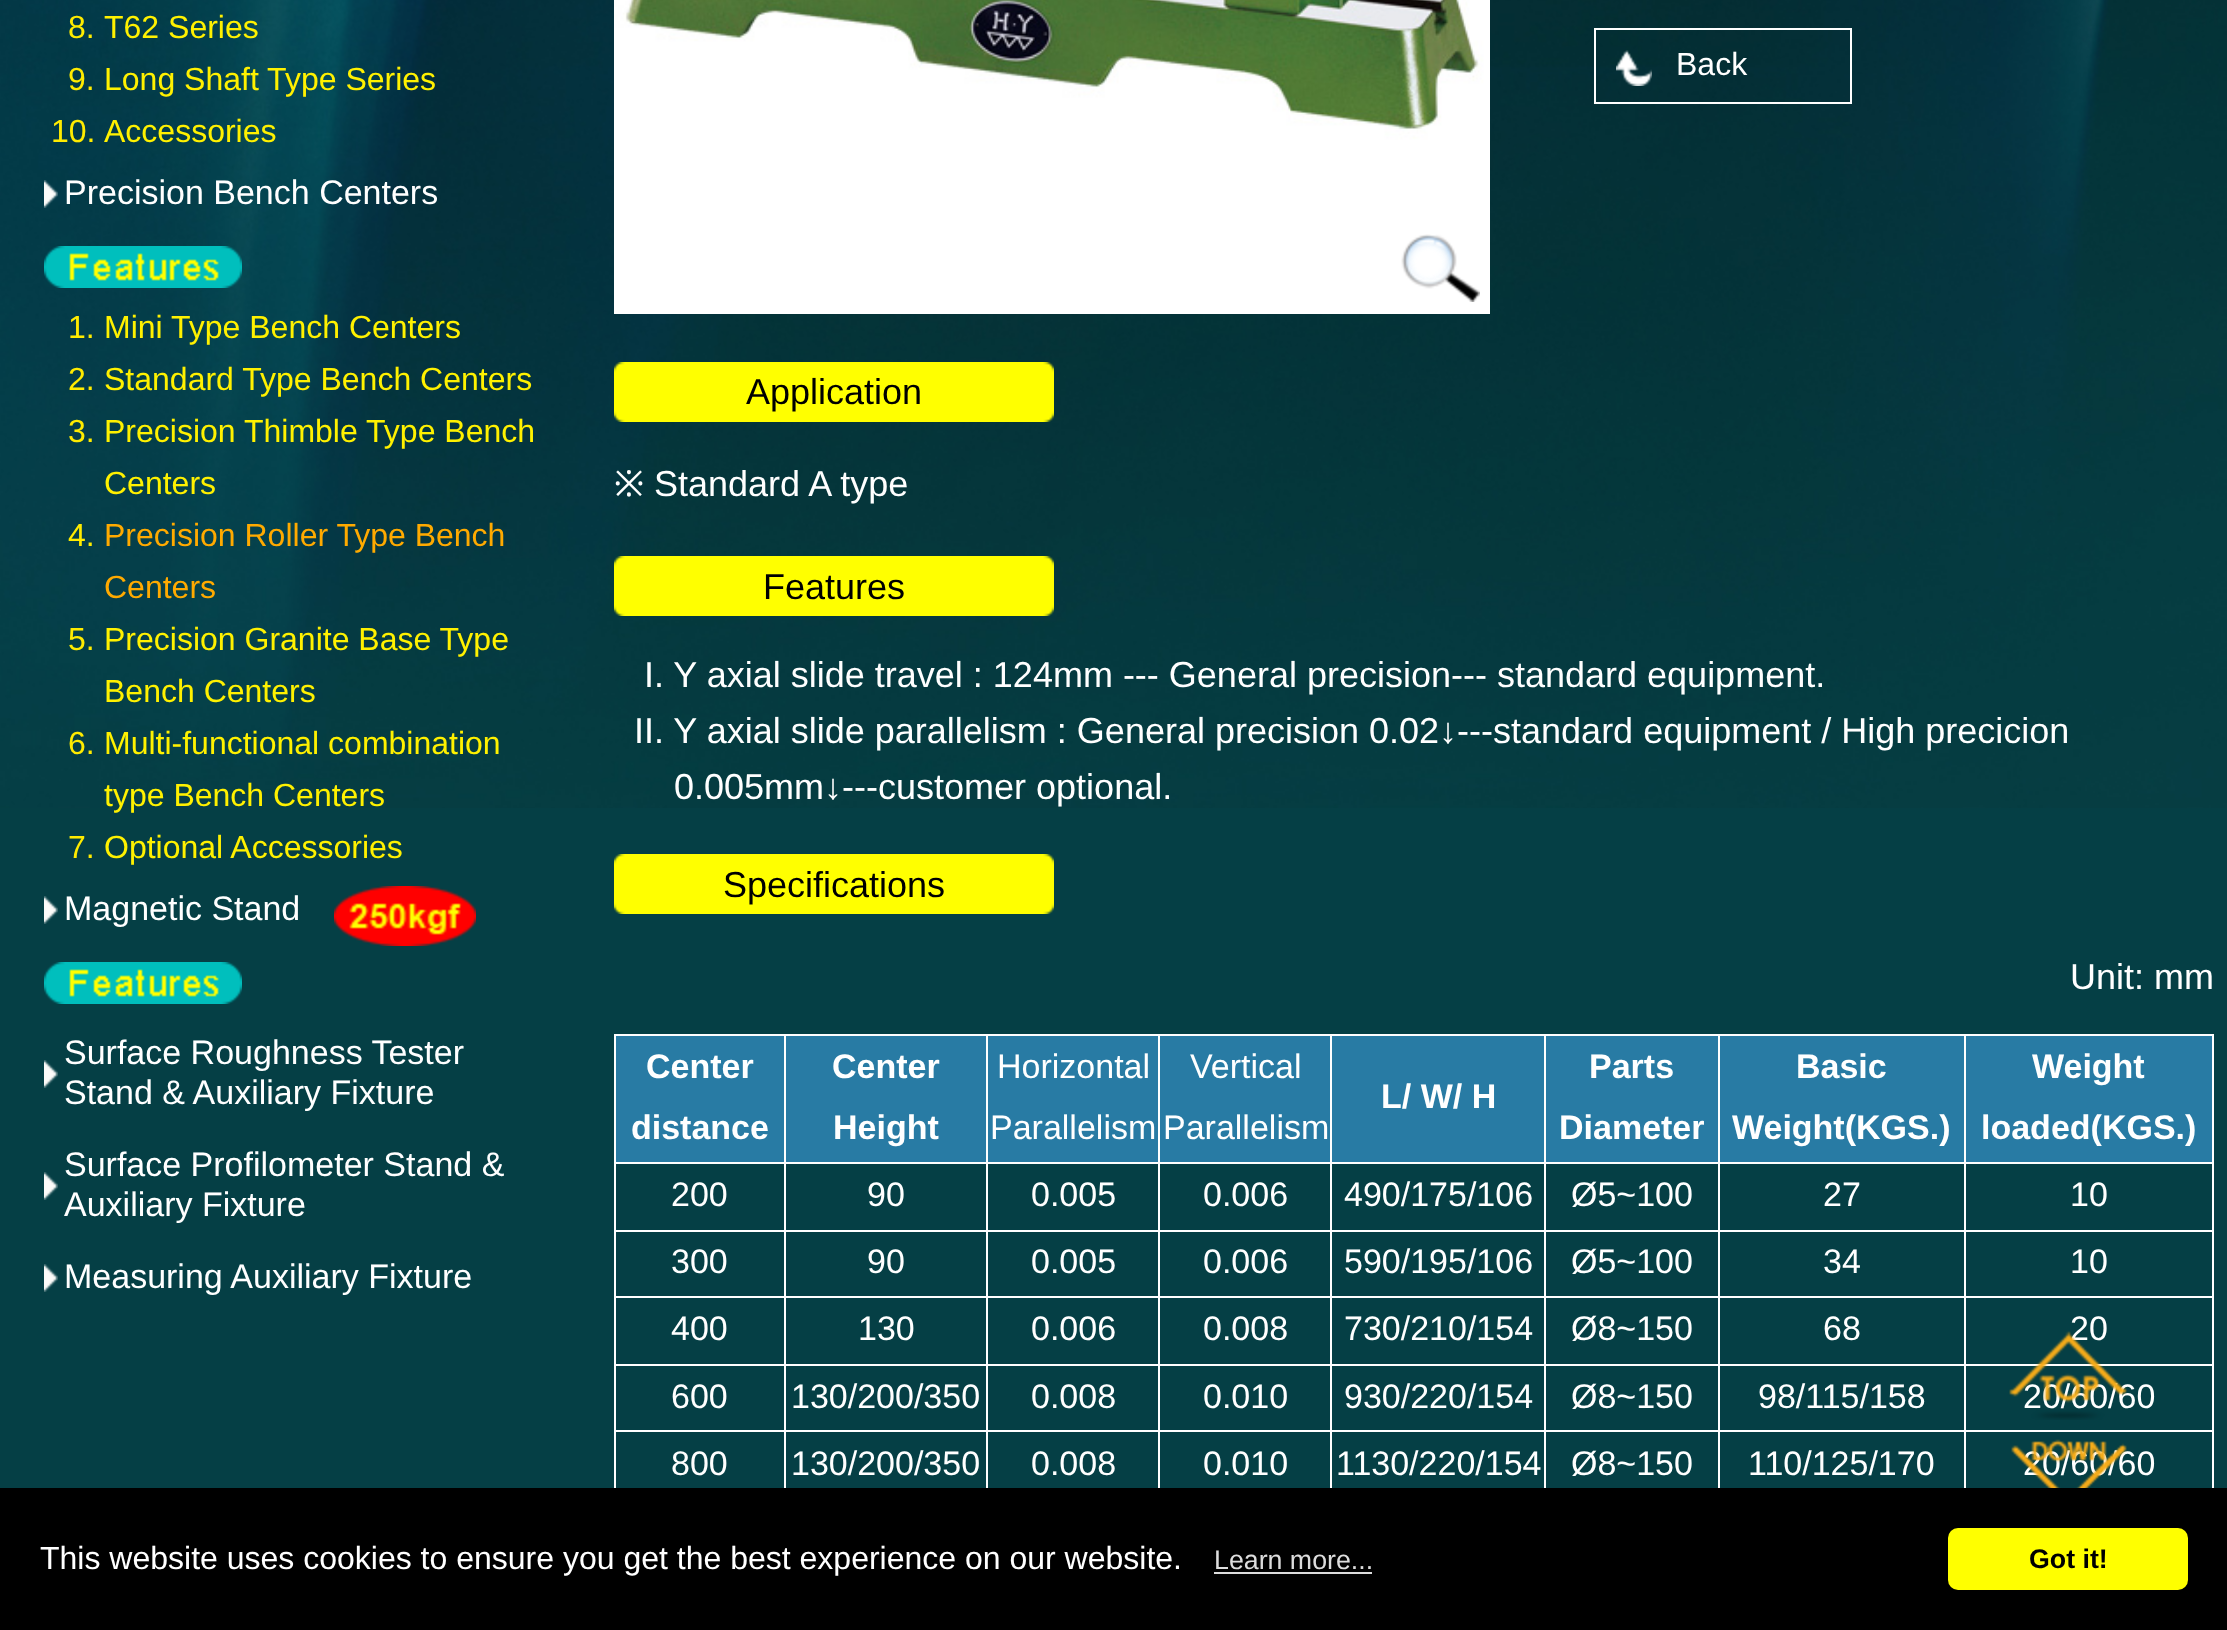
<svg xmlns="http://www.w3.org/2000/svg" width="2227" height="1630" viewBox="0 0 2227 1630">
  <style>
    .t1 { font: 32px Liberation Sans; fill: #ffeb00; }
    .t2 { font: 32px Liberation Sans; fill: #fff100; }
    .t3 { font: 34px Liberation Sans; fill: #fff; }
    .t4 { font: 32px Liberation Sans; fill: #fa0; }
    .t5 { font: 32px Liberation Sans; fill: #fff; }
    .t6 { font: 36px Liberation Sans; fill: #000; }
    .t7 { font: 36px Noto Sans; fill: #fff; }
    .t8 { font: 36px Liberation Sans; fill: #fff; }
    .t9 { font: bold 34px Liberation Sans; fill: #fff; }
    .t10 { font: 26.75px Liberation Sans; fill: #ddd; }
    .t11 { font: bold 26.75px Liberation Sans; fill: #000; }
  </style>
  <rect width="100%" height="100%" fill="#053f45"/>
  <image x="0" y="0" width="2227" height="808" href="images/1.png"/>
  <text x="68" y="38" class="t1">8.</text>
  <text x="104" y="38" class="t2">T62 Series</text>
  <text x="68" y="90" class="t1">9.</text>
  <text x="104" y="90" class="t2">Long Shaft Type Series</text>
  <text x="51" y="142" class="t1">10.</text>
  <text x="104" y="142" class="t2">Accessories</text>
  <image x="44" y="180" width="14" height="28" href="images/2.png"/>
  <text x="64" y="204" class="t3">Precision Bench Centers</text>
  <image x="44" y="246" width="198" height="42" href="images/3.png"/>
  <text x="68" y="338" class="t1">1.</text>
  <text x="104" y="338" class="t2">Mini Type Bench Centers</text>
  <text x="68" y="390" class="t1">2.</text>
  <text x="104" y="390" class="t2">Standard Type Bench Centers</text>
  <text x="68" y="442" class="t1">3.</text>
  <text x="104" y="442" class="t2">Precision Thimble Type Bench</text>
  <text x="104" y="494" class="t2">Centers</text>
  <text x="68" y="546" class="t1">4.</text>
  <text x="104" y="546" class="t4">Precision Roller Type Bench</text>
  <text x="104" y="598" class="t4">Centers</text>
  <text x="68" y="650" class="t1">5.</text>
  <text x="104" y="650" class="t2">Precision Granite Base Type</text>
  <text x="104" y="702" class="t2">Bench Centers</text>
  <text x="68" y="754" class="t1">6.</text>
  <text x="104" y="754" class="t2">Multi-functional combination</text>
  <text x="104" y="806" class="t2">type Bench Centers</text>
  <text x="68" y="858" class="t1">7.</text>
  <text x="104" y="858" class="t2">Optional Accessories</text>
  <image x="44" y="896" width="14" height="28" href="images/4.png"/>
  <text x="64" y="920" class="t3">Magnetic Stand</text>
  <image x="334" y="886" width="142" height="60" href="images/5.png"/>
  <image x="44" y="962" width="198" height="42" href="images/6.png"/>
  <image x="44" y="1060" width="14" height="28" href="images/4.png"/>
  <text x="64" y="1064" class="t3">Surface Roughness Tester</text>
  <text x="64" y="1104" class="t3">Stand &amp; Auxiliary Fixture</text>
  <image x="44" y="1172" width="14" height="28" href="images/4.png"/>
  <text x="64" y="1176" class="t3">Surface Profilometer Stand &amp;</text>
  <text x="64" y="1216" class="t3">Auxiliary Fixture</text>
  <image x="44" y="1264" width="14" height="28" href="images/4.png"/>
  <text x="64" y="1288" class="t3">Measuring Auxiliary Fixture</text>
  <image x="614" y="0" width="876" height="314" href="images/7.png"/>
  <image x="1401" y="234" width="79" height="68" href="images/8.png"/>
  <image x="1616" y="50" width="36" height="36" href="images/9.png"/>
  <rect x="1595" y="29" width="256" height="74" fill="none" stroke="#fff" stroke-width="2"/>
  <text x="1676" y="75" class="t5">Back</text>
  <image x="614" y="362" width="440" height="60" href="images/10.png"/>
  <text x="746" y="404" class="t6">Application</text>
  <text x="614" y="496" class="t7">※</text>
  <text x="654" y="496" class="t8">Standard A type</text>
  <image x="614" y="556" width="440" height="60" href="images/11.png"/>
  <text x="763" y="599" class="t6">Features</text>
  <text x="644" y="687" class="t8">I. Y axial slide travel : 124mm --- General precision--- standard equipment.</text>
  <text x="634" y="743" class="t8">II. Y axial slide parallelism : General precision 0.02↓---standard equipment / High precicion</text>
  <text x="674" y="799" class="t8">0.005mm↓---customer optional.</text>
  <image x="614" y="854" width="440" height="60" href="images/12.png"/>
  <text x="723" y="897" class="t6">Specifications</text>
  <text x="2070" y="989" class="t8">Unit: mm</text>
  <rect x="616" y="1036" width="168" height="126" fill="#287ba4"/>
  <rect x="1964" y="1034" width="250" height="2" fill="#fff"/>
  <rect x="1964" y="1162" width="250" height="2" fill="#fff"/>
  <rect x="1964" y="1230" width="250" height="2" fill="#fff"/>
  <rect x="1964" y="1296" width="250" height="2" fill="#fff"/>
  <rect x="1964" y="1364" width="250" height="2" fill="#fff"/>
  <rect x="1964" y="1430" width="250" height="2" fill="#fff"/>
  <rect x="1964" y="1430" width="2" height="58" fill="#fff"/>
  <rect x="1718" y="1430" width="248" height="2" fill="#fff"/>
  <rect x="1964" y="1364" width="2" height="68" fill="#fff"/>
  <rect x="1718" y="1364" width="248" height="2" fill="#fff"/>
  <rect x="1964" y="1296" width="2" height="70" fill="#fff"/>
  <rect x="1718" y="1296" width="248" height="2" fill="#fff"/>
  <rect x="1964" y="1230" width="2" height="68" fill="#fff"/>
  <rect x="1718" y="1230" width="248" height="2" fill="#fff"/>
  <rect x="1964" y="1162" width="2" height="70" fill="#fff"/>
  <rect x="1718" y="1162" width="248" height="2" fill="#fff"/>
  <rect x="1964" y="1034" width="2" height="130" fill="#fff"/>
  <rect x="1718" y="1034" width="248" height="2" fill="#fff"/>
  <rect x="1718" y="1430" width="2" height="58" fill="#fff"/>
  <rect x="1544" y="1430" width="176" height="2" fill="#fff"/>
  <rect x="1718" y="1364" width="2" height="68" fill="#fff"/>
  <rect x="1544" y="1364" width="176" height="2" fill="#fff"/>
  <rect x="1718" y="1296" width="2" height="70" fill="#fff"/>
  <rect x="1544" y="1296" width="176" height="2" fill="#fff"/>
  <rect x="1718" y="1230" width="2" height="68" fill="#fff"/>
  <rect x="1544" y="1230" width="176" height="2" fill="#fff"/>
  <rect x="1718" y="1162" width="2" height="70" fill="#fff"/>
  <rect x="1544" y="1162" width="176" height="2" fill="#fff"/>
  <rect x="1718" y="1034" width="2" height="130" fill="#fff"/>
  <rect x="1544" y="1034" width="176" height="2" fill="#fff"/>
  <rect x="1544" y="1430" width="2" height="58" fill="#fff"/>
  <rect x="1330" y="1430" width="216" height="2" fill="#fff"/>
  <rect x="1544" y="1364" width="2" height="68" fill="#fff"/>
  <rect x="1330" y="1364" width="216" height="2" fill="#fff"/>
  <rect x="1544" y="1296" width="2" height="70" fill="#fff"/>
  <rect x="1330" y="1296" width="216" height="2" fill="#fff"/>
  <rect x="1544" y="1230" width="2" height="68" fill="#fff"/>
  <rect x="1330" y="1230" width="216" height="2" fill="#fff"/>
  <rect x="1544" y="1162" width="2" height="70" fill="#fff"/>
  <rect x="1330" y="1162" width="216" height="2" fill="#fff"/>
  <rect x="1544" y="1034" width="2" height="130" fill="#fff"/>
  <rect x="1330" y="1034" width="216" height="2" fill="#fff"/>
  <rect x="1330" y="1430" width="2" height="58" fill="#fff"/>
  <rect x="1158" y="1430" width="174" height="2" fill="#fff"/>
  <rect x="1330" y="1364" width="2" height="68" fill="#fff"/>
  <rect x="1158" y="1364" width="174" height="2" fill="#fff"/>
  <rect x="1330" y="1296" width="2" height="70" fill="#fff"/>
  <rect x="1158" y="1296" width="174" height="2" fill="#fff"/>
  <rect x="1330" y="1230" width="2" height="68" fill="#fff"/>
  <rect x="1158" y="1230" width="174" height="2" fill="#fff"/>
  <rect x="1330" y="1162" width="2" height="70" fill="#fff"/>
  <rect x="1158" y="1162" width="174" height="2" fill="#fff"/>
  <rect x="1330" y="1034" width="2" height="130" fill="#fff"/>
  <rect x="1158" y="1034" width="174" height="2" fill="#fff"/>
  <rect x="1158" y="1430" width="2" height="58" fill="#fff"/>
  <rect x="986" y="1430" width="174" height="2" fill="#fff"/>
  <rect x="1158" y="1364" width="2" height="68" fill="#fff"/>
  <rect x="986" y="1364" width="174" height="2" fill="#fff"/>
  <rect x="1158" y="1296" width="2" height="70" fill="#fff"/>
  <rect x="986" y="1296" width="174" height="2" fill="#fff"/>
  <rect x="1158" y="1230" width="2" height="68" fill="#fff"/>
  <rect x="986" y="1230" width="174" height="2" fill="#fff"/>
  <rect x="1158" y="1162" width="2" height="70" fill="#fff"/>
  <rect x="986" y="1162" width="174" height="2" fill="#fff"/>
  <rect x="1158" y="1034" width="2" height="130" fill="#fff"/>
  <rect x="986" y="1034" width="174" height="2" fill="#fff"/>
  <rect x="986" y="1430" width="2" height="58" fill="#fff"/>
  <rect x="784" y="1430" width="204" height="2" fill="#fff"/>
  <rect x="986" y="1364" width="2" height="68" fill="#fff"/>
  <rect x="784" y="1364" width="204" height="2" fill="#fff"/>
  <rect x="986" y="1296" width="2" height="70" fill="#fff"/>
  <rect x="784" y="1296" width="204" height="2" fill="#fff"/>
  <rect x="986" y="1230" width="2" height="68" fill="#fff"/>
  <rect x="784" y="1230" width="204" height="2" fill="#fff"/>
  <rect x="986" y="1162" width="2" height="70" fill="#fff"/>
  <rect x="784" y="1162" width="204" height="2" fill="#fff"/>
  <rect x="986" y="1034" width="2" height="130" fill="#fff"/>
  <rect x="784" y="1034" width="204" height="2" fill="#fff"/>
  <rect x="784" y="1430" width="2" height="58" fill="#fff"/>
  <rect x="614" y="1430" width="172" height="2" fill="#fff"/>
  <rect x="784" y="1364" width="2" height="68" fill="#fff"/>
  <rect x="614" y="1364" width="172" height="2" fill="#fff"/>
  <rect x="784" y="1296" width="2" height="70" fill="#fff"/>
  <rect x="614" y="1296" width="172" height="2" fill="#fff"/>
  <rect x="784" y="1230" width="2" height="68" fill="#fff"/>
  <rect x="614" y="1230" width="172" height="2" fill="#fff"/>
  <rect x="784" y="1162" width="2" height="70" fill="#fff"/>
  <rect x="614" y="1162" width="172" height="2" fill="#fff"/>
  <rect x="784" y="1034" width="2" height="130" fill="#fff"/>
  <rect x="614" y="1034" width="172" height="2" fill="#fff"/>
  <rect x="614" y="1430" width="2" height="58" fill="#fff"/>
  <rect x="614" y="1364" width="2" height="68" fill="#fff"/>
  <rect x="614" y="1296" width="2" height="70" fill="#fff"/>
  <rect x="614" y="1230" width="2" height="68" fill="#fff"/>
  <rect x="614" y="1162" width="2" height="70" fill="#fff"/>
  <rect x="614" y="1034" width="2" height="130" fill="#fff"/>
  <text x="646" y="1078" class="t9">Center</text>
  <text x="631" y="1139" class="t9">distance</text>
  <rect x="786" y="1036" width="200" height="126" fill="#287ba4"/>
  <text x="832" y="1078" class="t9">Center</text>
  <text x="833" y="1139" class="t9">Height</text>
  <rect x="988" y="1036" width="170" height="126" fill="#287ba4"/>
  <text x="997" y="1078" class="t3">Horizontal</text>
  <text x="990" y="1139" class="t3">Parallelism</text>
  <rect x="1160" y="1036" width="170" height="126" fill="#287ba4"/>
  <text x="1190" y="1078" class="t3">Vertical</text>
  <text x="1163" y="1139" class="t3">Parallelism</text>
  <rect x="1332" y="1036" width="212" height="126" fill="#287ba4"/>
  <text x="1381" y="1108" class="t9">L/ W/ H</text>
  <rect x="1546" y="1036" width="172" height="126" fill="#287ba4"/>
  <text x="1589" y="1078" class="t9">Parts</text>
  <text x="1559" y="1139" class="t9">Diameter</text>
  <rect x="1720" y="1036" width="244" height="126" fill="#287ba4"/>
  <text x="1796" y="1078" class="t9">Basic</text>
  <text x="1732" y="1139" class="t9">Weight(KGS.)</text>
  <rect x="1966" y="1036" width="246" height="126" fill="#287ba4"/>
  <rect x="2212" y="1430" width="2" height="58" fill="#fff"/>
  <rect x="2212" y="1364" width="2" height="68" fill="#fff"/>
  <rect x="2212" y="1296" width="2" height="70" fill="#fff"/>
  <rect x="2212" y="1230" width="2" height="68" fill="#fff"/>
  <rect x="2212" y="1162" width="2" height="70" fill="#fff"/>
  <rect x="2212" y="1034" width="2" height="130" fill="#fff"/>
  <text x="2032" y="1078" class="t9">Weight</text>
  <text x="1981" y="1139" class="t9">loaded(KGS.)</text>
  <text x="671" y="1206" class="t3">200</text>
  <text x="867" y="1206" class="t3">90</text>
  <text x="1031" y="1206" class="t3">0.005</text>
  <text x="1203" y="1206" class="t3">0.006</text>
  <text x="1344" y="1206" class="t3">490/175/106</text>
  <text x="1571" y="1206" class="t3">Ø5~100</text>
  <text x="1823" y="1206" class="t3">27</text>
  <text x="2070" y="1206" class="t3">10</text>
  <text x="671" y="1273" class="t3">300</text>
  <text x="867" y="1273" class="t3">90</text>
  <text x="1031" y="1273" class="t3">0.005</text>
  <text x="1203" y="1273" class="t3">0.006</text>
  <text x="1344" y="1273" class="t3">590/195/106</text>
  <text x="1571" y="1273" class="t3">Ø5~100</text>
  <text x="1823" y="1273" class="t3">34</text>
  <text x="2070" y="1273" class="t3">10</text>
  <text x="671" y="1340" class="t3">400</text>
  <text x="858" y="1340" class="t3">130</text>
  <text x="1031" y="1340" class="t3">0.006</text>
  <text x="1203" y="1340" class="t3">0.008</text>
  <text x="1344" y="1340" class="t3">730/210/154</text>
  <text x="1571" y="1340" class="t3">Ø8~150</text>
  <text x="1823" y="1340" class="t3">68</text>
  <text x="2070" y="1340" class="t3">20</text>
  <text x="671" y="1408" class="t3">600</text>
  <text x="791" y="1408" class="t3">130/200/350</text>
  <text x="1031" y="1408" class="t3">0.008</text>
  <text x="1203" y="1408" class="t3">0.010</text>
  <text x="1344" y="1408" class="t3">930/220/154</text>
  <text x="1571" y="1408" class="t3">Ø8~150</text>
  <text x="1758" y="1408" class="t3">98/115/158</text>
  <text x="2023" y="1408" class="t3">20/60/60</text>
  <text x="671" y="1475" class="t3">800</text>
  <text x="791" y="1475" class="t3">130/200/350</text>
  <text x="1031" y="1475" class="t3">0.008</text>
  <text x="1203" y="1475" class="t3">0.010</text>
  <text x="1336" y="1475" class="t3">1130/220/154</text>
  <text x="1571" y="1475" class="t3">Ø8~150</text>
  <text x="1748" y="1475" class="t3">110/125/170</text>
  <text x="2023" y="1475" class="t3">20/60/60</text>
  <image x="2009" y="1331" width="118" height="89" href="images/13.png"/>
  <image x="2011" y="1439" width="116" height="49" href="images/14.png"/>
  <rect x="0" y="1488" width="2227" height="142" fill="#000"/>
  <text x="40" y="1569" class="t5">This website uses cookies to ensure you get the best experience on our website.</text>
  <text x="1214" y="1569" class="t10">Learn more...</text>
  <rect x="1214" y="1572" width="158" height="2" fill="#ddd"/>
  <rect x="1948" y="1528" width="240" height="62" rx="10" fill="#ff0"/>
  <text x="2029" y="1568" class="t11">Got it!</text>
</svg>
